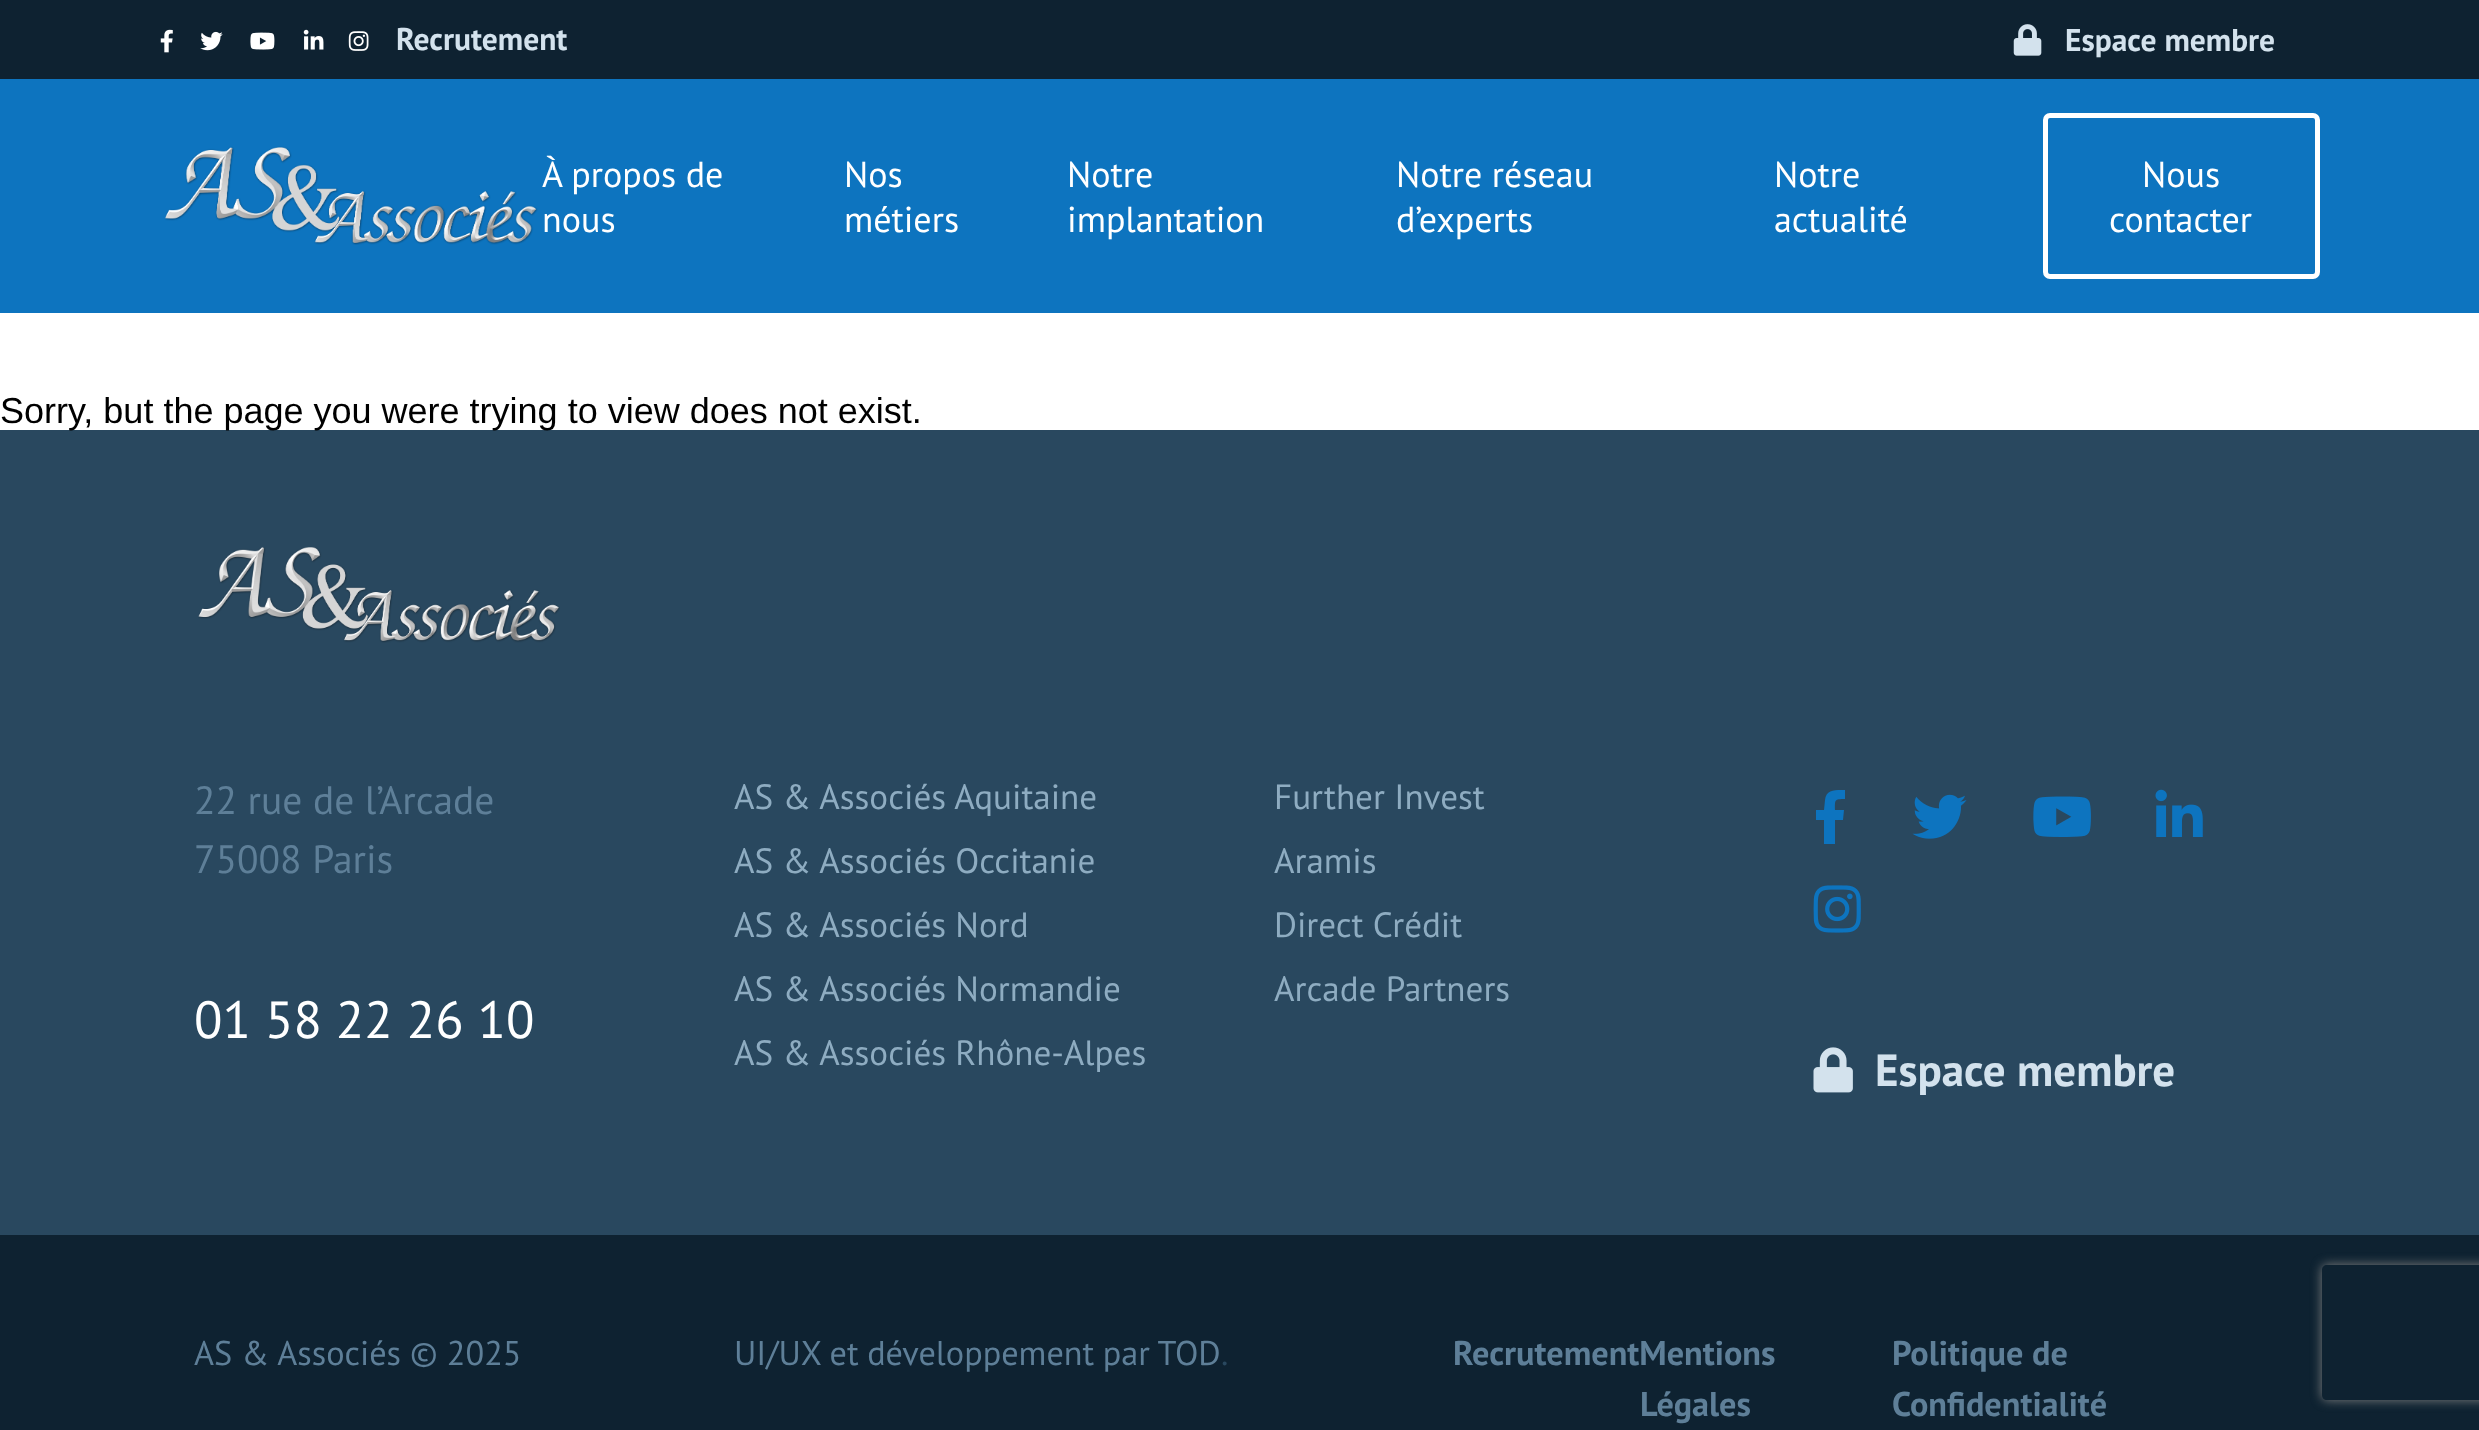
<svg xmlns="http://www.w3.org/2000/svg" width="2479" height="1430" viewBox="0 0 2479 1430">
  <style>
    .t1 { font: bold 31.5px PT Sans; fill: #d3e2ed; }
    .t2 { font: 36px PT Sans; fill: #fff; }
    .t3 { font: 36px Liberation Sans; fill: #000; }
    .t4 { font: 39.5px PT Sans; fill: #5e7f98; }
    .t5 { font: 52.25px PT Sans; fill: #fff; }
    .t6 { font: 35.1px PT Sans; fill: #8eacc1; }
    .t7 { font: bold 45px PT Sans; fill: #d3e2ed; }
    .t8 { font: 34.25px PT Sans; fill: #5e7f98; }
    .t9 { font: 34.25px PT Sans; fill: #29485f; }
    .t10 { font: bold 34.25px PT Sans; fill: #5e7f98; }
  </style>
  <defs>
    <clipPath id="clip1"><path d="M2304 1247H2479V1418H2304ZM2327 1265H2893C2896 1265 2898 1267 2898 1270V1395C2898 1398 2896 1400 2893 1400H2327C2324 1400 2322 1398 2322 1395V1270C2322 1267 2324 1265 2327 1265Z" clip-rule="evenodd"/></clipPath>
  </defs>
  <rect width="100%" height="100%" fill="#fff"/>
  <rect x="0" y="0" width="2479" height="79" fill="#0e2231"/>
  <image x="160" y="29" width="13" height="24" href="images/1.png"/>
  <image x="200" y="31" width="23" height="20" href="images/2.png"/>
  <image x="250" y="32" width="25" height="18" href="images/3.png"/>
  <image x="303" y="29" width="21" height="21" href="images/4.png"/>
  <image x="348" y="31" width="21" height="20" href="images/5.png"/>
  <text x="396" y="50" class="t1">Recrutement</text>
  <image x="2013" y="24" width="29" height="32" href="images/6.png"/>
  <text x="2065" y="51" class="t1">Espace membre</text>
  <rect x="0" y="79" width="2479" height="234" fill="#0d74bf"/>
  <image x="165" y="146" width="373" height="99" href="images/7.png"/>
  <text x="542" y="187" class="t2">À propos de</text>
  <text x="542" y="232" class="t2">nous</text>
  <text x="844" y="187" class="t2">Nos</text>
  <text x="844" y="232" class="t2">métiers</text>
  <text x="1067" y="187" class="t2">Notre</text>
  <text x="1067" y="232" class="t2">implantation</text>
  <text x="1396" y="187" class="t2">Notre réseau</text>
  <text x="1396" y="232" class="t2">d’experts</text>
  <text x="1774" y="187" class="t2">Notre</text>
  <text x="1774" y="232" class="t2">actualité</text>
  <rect x="2045.5" y="115.5" width="272" height="161" rx="4.5" fill="none" stroke="#fff" stroke-width="5"/>
  <text x="2142" y="187" class="t2">Nous</text>
  <text x="2109" y="232" class="t2">contacter</text>
  <rect x="0" y="430" width="2479" height="805" fill="#29485f"/>
  <text x="0" y="423" class="t3">Sorry, but the page you were trying to view does not exist.</text>
  <image x="198" y="547" width="362" height="96" href="images/8.png"/>
  <text x="194" y="814" class="t4">22 rue de l’Arcade</text>
  <text x="194" y="873" class="t4">75008 Paris</text>
  <text x="194" y="1038" class="t5">01 58 22 26 10</text>
  <text x="734" y="809" class="t6">AS &amp; Associés Aquitaine</text>
  <text x="734" y="873" class="t6">AS &amp; Associés Occitanie</text>
  <text x="734" y="937" class="t6">AS &amp; Associés Nord</text>
  <text x="734" y="1001" class="t6">AS &amp; Associés Normandie</text>
  <text x="734" y="1065" class="t6">AS &amp; Associés Rhône-Alpes</text>
  <text x="1274" y="809" class="t6">Further Invest</text>
  <text x="1274" y="873" class="t6">Aramis</text>
  <text x="1274" y="937" class="t6">Direct Crédit</text>
  <text x="1274" y="1001" class="t6">Arcade Partners</text>
  <path d="M1843 820H1835V844H1824V820H1816V810H1824L1825 800C1826 789 1836 790 1845 790V799C1834 799 1835 800 1835 810H1844Z" fill="#0d74bf"/>
  <image x="1912" y="794" width="55" height="45" href="images/9.png"/>
  <image x="2033" y="796" width="58" height="41" href="images/10.png"/>
  <image x="2155" y="789" width="48" height="48" href="images/11.png"/>
  <image x="1813" y="885" width="48" height="48" href="images/12.png"/>
  <image x="1813" y="1047" width="40" height="46" href="images/13.png"/>
  <text x="1875" y="1086" class="t7">Espace membre</text>
  <rect x="0" y="1235" width="2479" height="195" fill="#0e2231"/>
  <text x="194" y="1365" class="t8">AS &amp; Associés © 2025</text>
  <text x="734" y="1365" word-spacing="-0.5" class="t8">UI/UX et développement par TOD</text>
  <text x="1221" y="1365" class="t9">.</text>
  <text x="1453" y="1365" class="t10">RecrutementMentions</text>
  <text x="1892" y="1365" class="t10">Politique de</text>
  <text x="1892" y="1416" class="t10">Confidentialité</text>
  <text x="1640" y="1416" class="t10">Légales</text>
  <g clip-path="url(#clip1)">
    <rect x="2322" y="1265" width="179" height="135" rx="5" fill="#808080" filter="blur(5.5px)"/>
  </g>
</svg>
